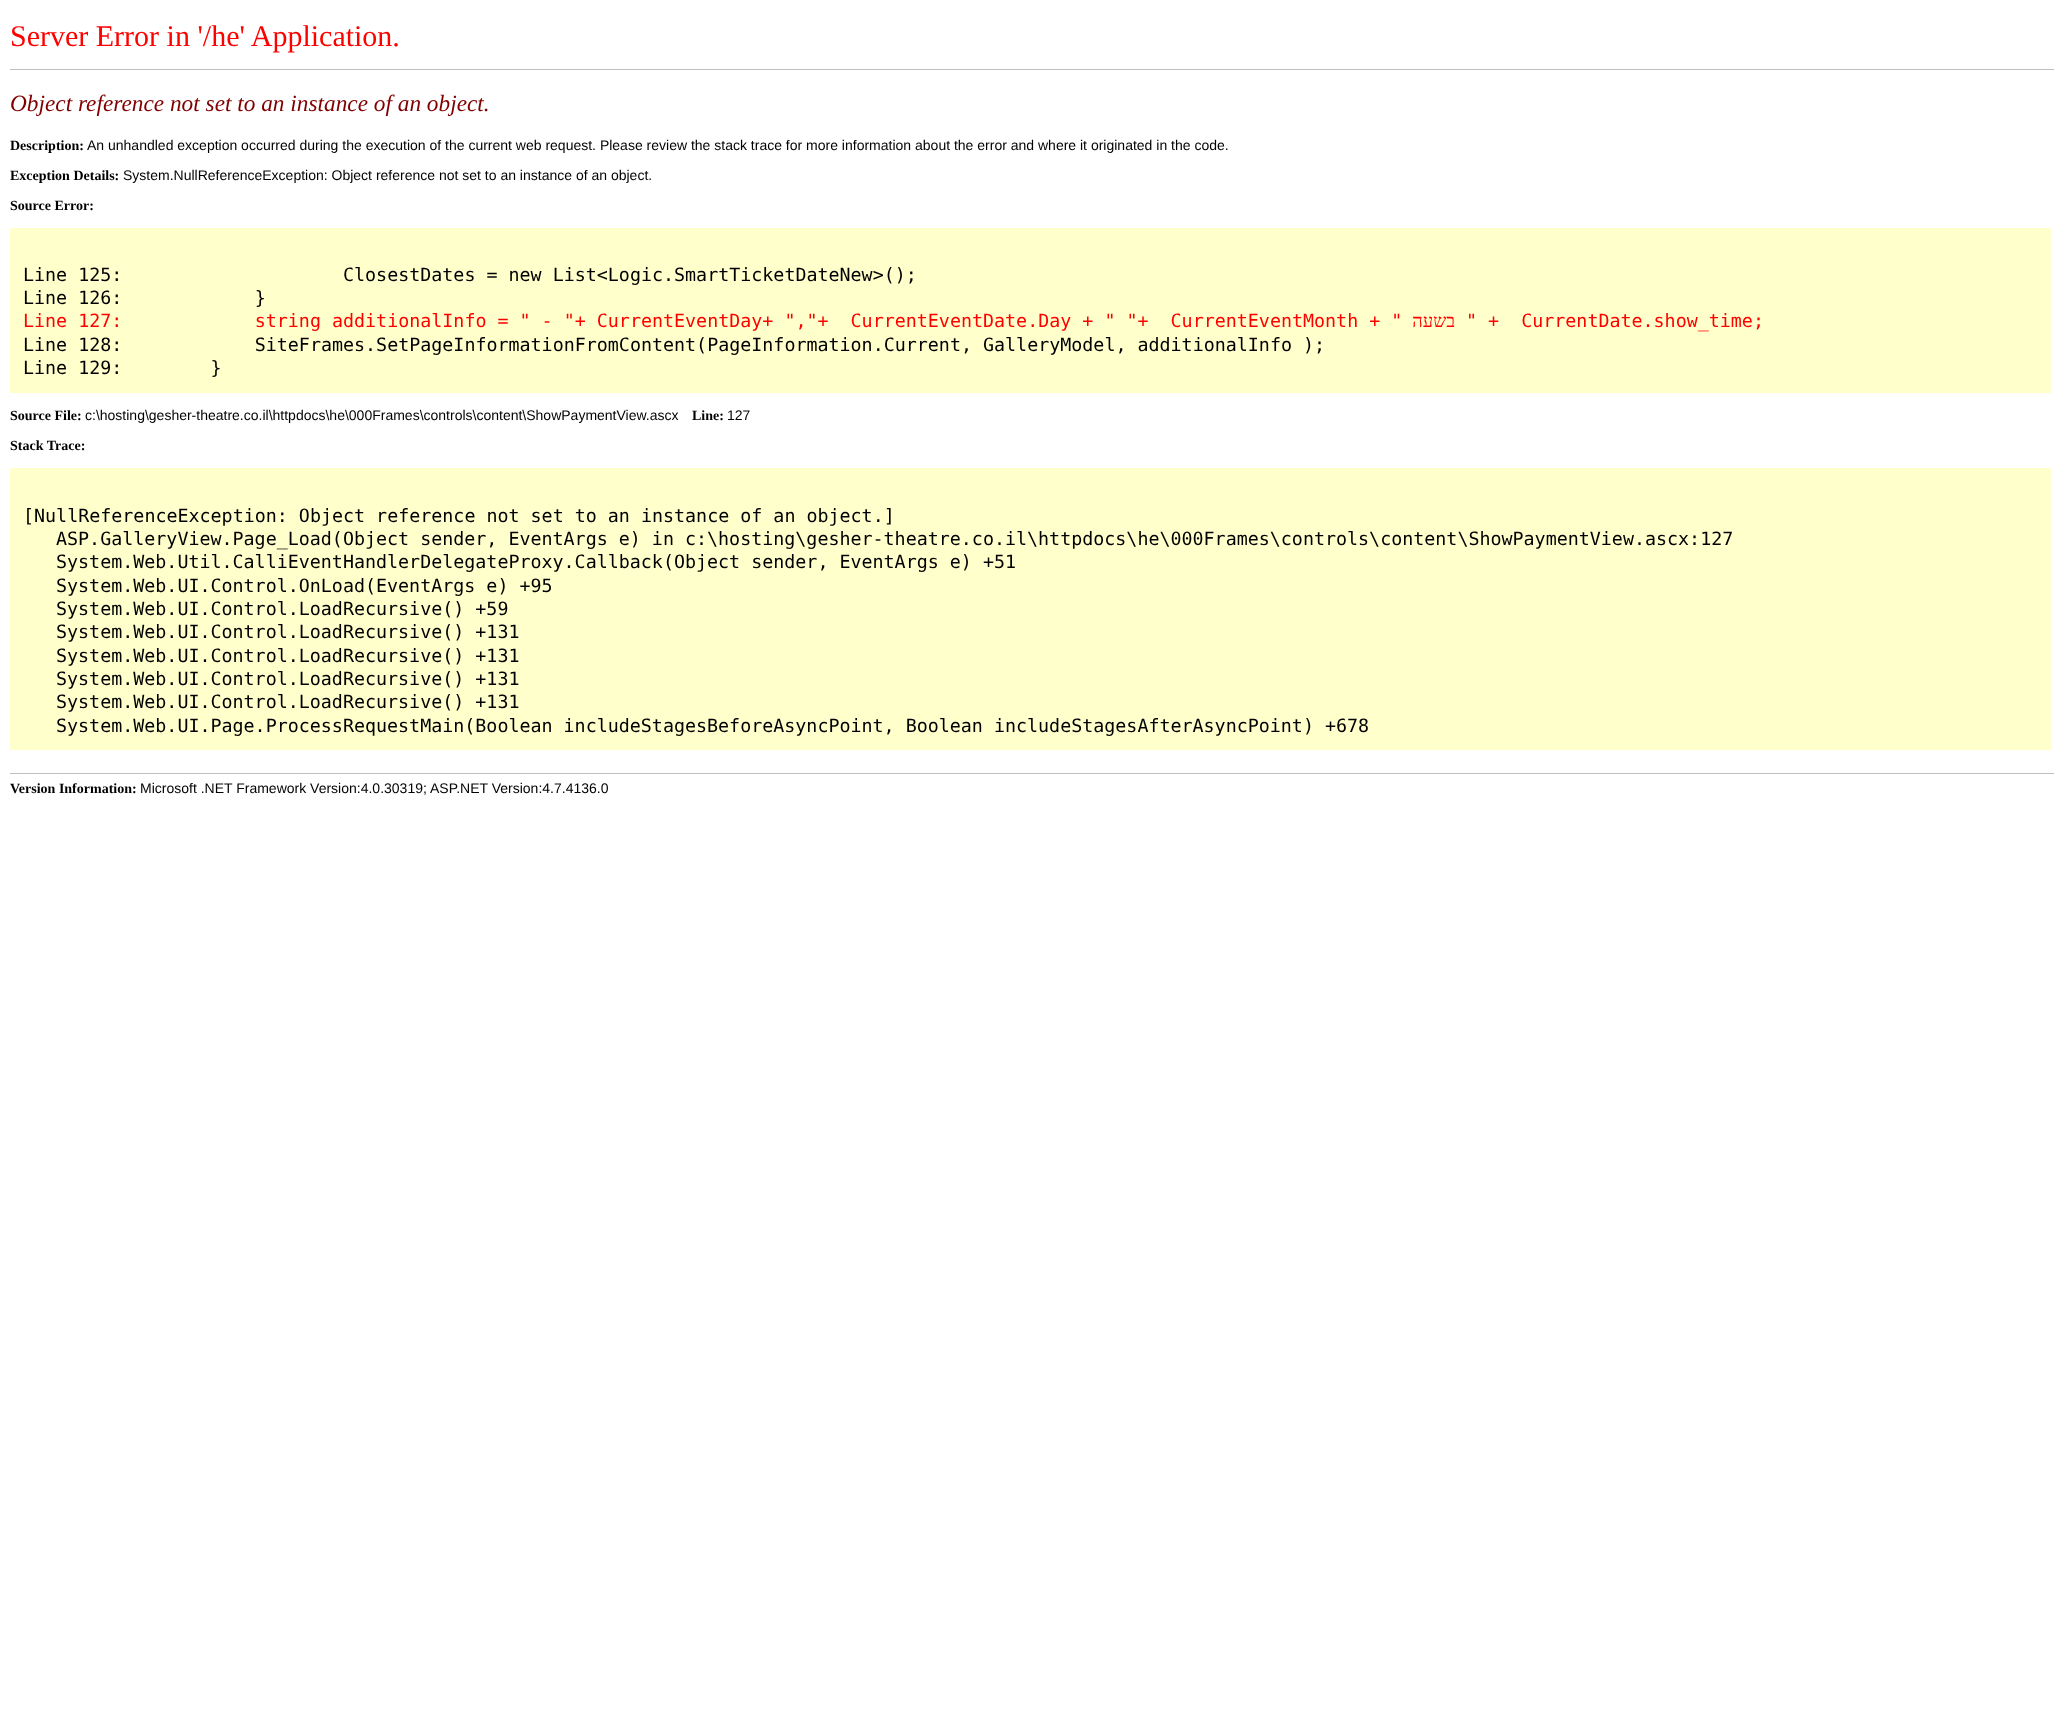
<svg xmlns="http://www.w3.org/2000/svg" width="2061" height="1714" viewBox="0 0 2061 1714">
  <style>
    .t1 { font: 30px Liberation Serif; fill: #f00; }
    .t2 { font: italic 23.3px Liberation Serif; fill: #800000; }
    .t3 { font: bold 14px Liberation Serif; fill: #000; }
    .t4 { font: 14px Liberation Sans; fill: #000; }
    .t5 { font: 18.33px DejaVu Sans Mono; fill: #000; }
    .t6 { font: 18.33px DejaVu Sans Mono; fill: #f00; }
    .t7 { font: 18.33px Liberation Serif; direction: rtl; fill: #f00; }
  </style>
  <rect width="100%" height="100%" fill="#fff"/>
  <text x="10" y="46" class="t1">Server Error in '/he' Application.</text>
  <rect x="10" y="69" width="2044" height="1" fill="#c0c0c0"/>
  <text x="10" y="111" class="t2">Object reference not set to an instance of an object.</text>
  <text x="10" y="150" class="t3">Description:</text>
  <text x="87" y="150" class="t4">An unhandled exception occurred during the execution of the current web request. Please review the stack trace for more information about the error and where it originated in the code.</text>
  <text x="10" y="180" class="t3">Exception Details:</text>
  <text x="123" y="180" class="t4">System.NullReferenceException: Object reference not set to an instance of an object.</text>
  <text x="10" y="210" class="t3">Source Error:</text>
  <rect x="10" y="228" width="2041" height="165" fill="#ffc"/>
  <text x="23" y="281" class="t5" xml:space="preserve">Line 125:                    ClosestDates = new List&lt;Logic.SmartTicketDateNew&gt;();</text>
  <text x="23" y="304" class="t5" xml:space="preserve">Line 126:            }</text>
  <text x="23" y="327" class="t6" xml:space="preserve">Line 127:            string additionalInfo = " - "+ CurrentEventDay+ ","+  CurrentEventDate.Day + " "+  CurrentEventMonth + "</text>
  <text x="1455" y="327" class="t7">בשעה</text>
  <text x="1466" y="327" class="t6" xml:space="preserve">" +  CurrentDate.show_time;</text>
  <text x="23" y="351" class="t5" xml:space="preserve">Line 128:            SiteFrames.SetPageInformationFromContent(PageInformation.Current, GalleryModel, additionalInfo );</text>
  <text x="23" y="374" class="t5" xml:space="preserve">Line 129:        }</text>
  <text x="10" y="420" class="t3">Source File:</text>
  <text x="85" y="420" class="t4">c:\hosting\gesher-theatre.co.il\httpdocs\he\000Frames\controls\content\ShowPaymentView.ascx</text>
  <text x="692" y="420" class="t3">Line:</text>
  <text x="727" y="420" class="t4">127</text>
  <text x="10" y="450" class="t3">Stack Trace:</text>
  <rect x="10" y="468" width="2041" height="282" fill="#ffc"/>
  <text x="23" y="522" class="t5">[NullReferenceException: Object reference not set to an instance of an object.]</text>
  <text x="56" y="545" class="t5">ASP.GalleryView.Page_Load(Object sender, EventArgs e) in c:\hosting\gesher-theatre.co.il\httpdocs\he\000Frames\controls\content\ShowPaymentView.ascx:127</text>
  <text x="56" y="568" class="t5">System.Web.Util.CalliEventHandlerDelegateProxy.Callback(Object sender, EventArgs e) +51</text>
  <text x="56" y="592" class="t5">System.Web.UI.Control.OnLoad(EventArgs e) +95</text>
  <text x="56" y="615" class="t5">System.Web.UI.Control.LoadRecursive() +59</text>
  <text x="56" y="638" class="t5">System.Web.UI.Control.LoadRecursive() +131</text>
  <text x="56" y="662" class="t5">System.Web.UI.Control.LoadRecursive() +131</text>
  <text x="56" y="685" class="t5">System.Web.UI.Control.LoadRecursive() +131</text>
  <text x="56" y="708" class="t5">System.Web.UI.Control.LoadRecursive() +131</text>
  <text x="56" y="732" class="t5">System.Web.UI.Page.ProcessRequestMain(Boolean includeStagesBeforeAsyncPoint, Boolean includeStagesAfterAsyncPoint) +678</text>
  <rect x="10" y="773" width="2044" height="1" fill="#c0c0c0"/>
  <text x="10" y="793" class="t3">Version Information:</text>
  <text x="140" y="793" class="t4">Microsoft .NET Framework Version:4.0.30319; ASP.NET Version:4.7.4136.0</text>
</svg>
